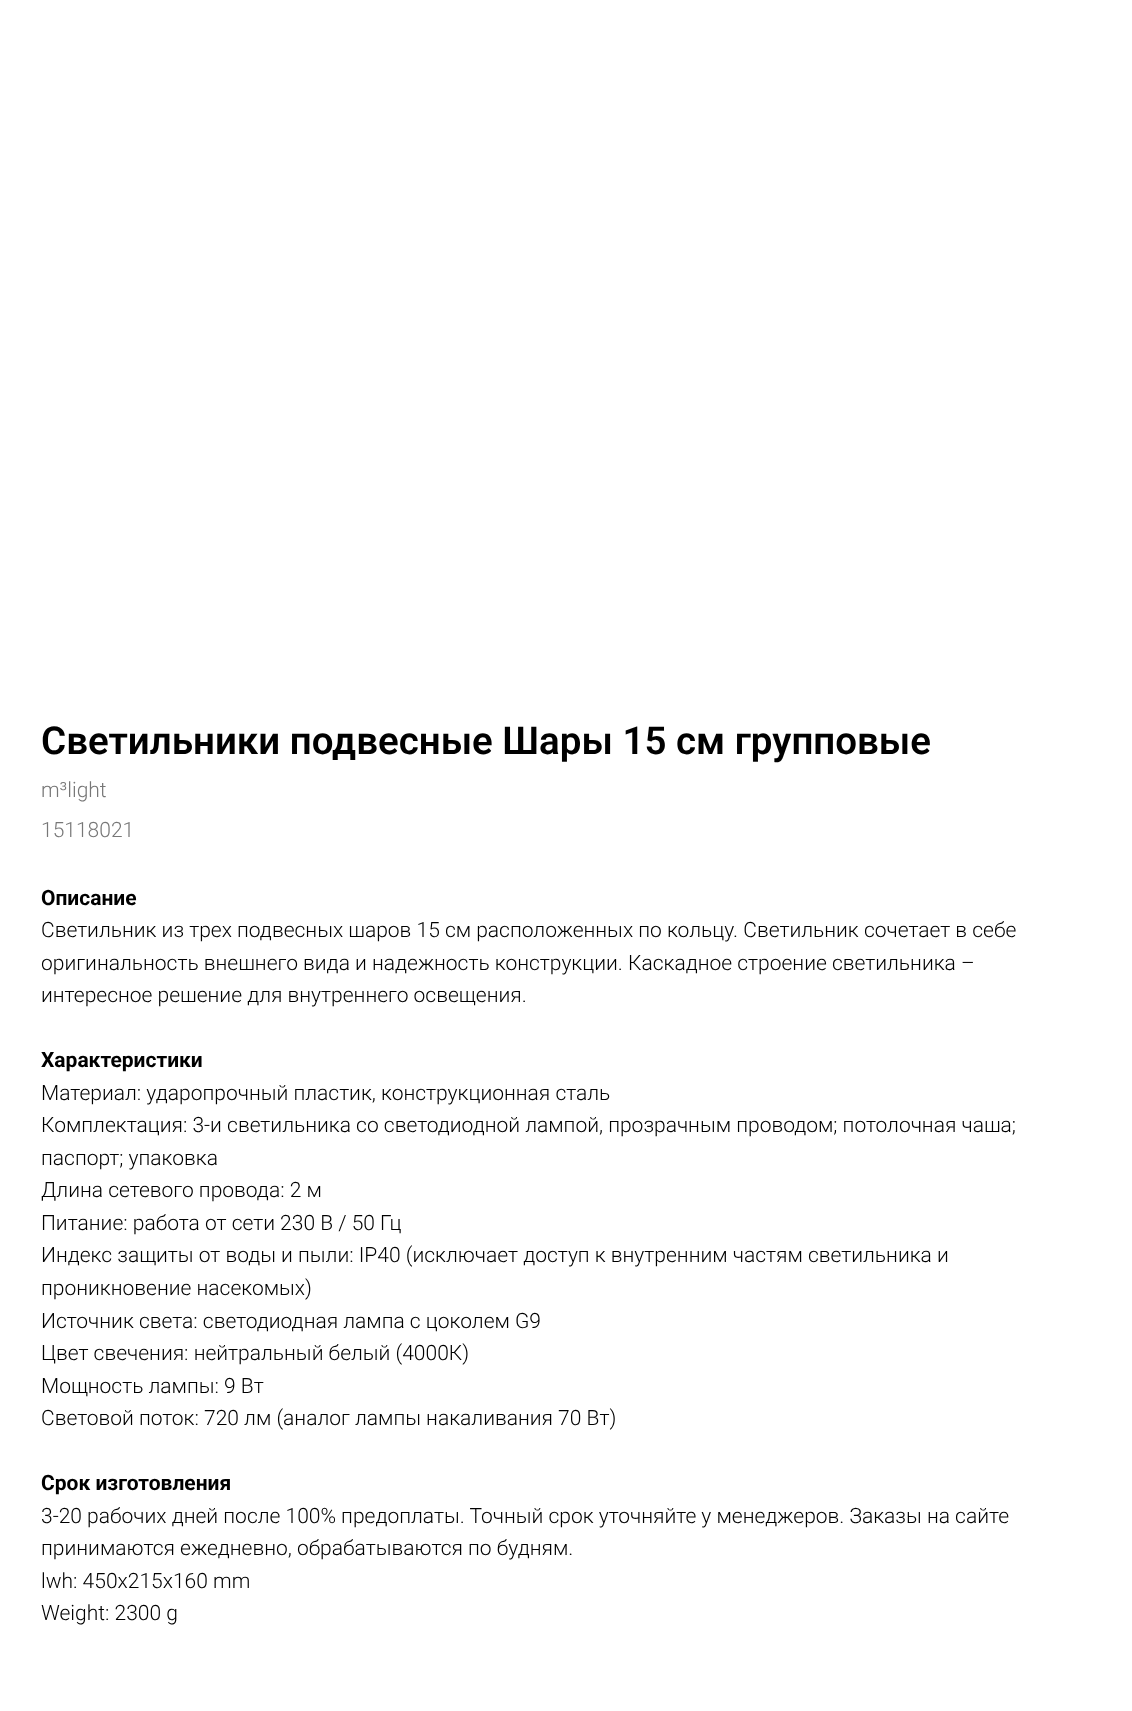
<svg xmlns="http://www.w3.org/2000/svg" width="1132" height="1711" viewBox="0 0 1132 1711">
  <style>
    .t1 { font: 600 38.5px Roboto; fill: #000; }
    .t2 { font: 300 21px Roboto; fill: #777; }
    .t3 { font: bold 21px Roboto; fill: #000; }
    .t4 { font: 300 21px Roboto; fill: #000; }
  </style>
  <rect width="100%" height="100%" fill="#fff"/>
  <text x="41" y="754" class="t1">Светильники подвесные Шары 15 см групповые</text>
  <text x="41" y="797" class="t2">m³light</text>
  <text x="41" y="837" class="t2">15118021</text>
  <text x="41" y="905" class="t3">Описание</text>
  <text x="41" y="937" class="t4">Светильник из трех подвесных шаров 15 см расположенных по кольцу. Светильник сочетает в себе</text>
  <text x="41" y="970" class="t4">оригинальность внешнего вида и надежность конструкции. Каскадное строение светильника –</text>
  <text x="41" y="1002" class="t4">интересное решение для внутреннего освещения.</text>
  <text x="41" y="1067" class="t3">Характеристики</text>
  <text x="41" y="1100" class="t4">Материал: ударопрочный пластик, конструкционная сталь</text>
  <text x="41" y="1132" class="t4">Комплектация: 3-и светильника со светодиодной лампой, прозрачным проводом; потолочная чаша;</text>
  <text x="41" y="1165" class="t4">паспорт; упаковка</text>
  <text x="41" y="1197" class="t4">Длина сетевого провода: 2 м</text>
  <text x="41" y="1230" class="t4">Питание: работа от сети 230 В / 50 Гц</text>
  <text x="41" y="1262" class="t4">Индекс защиты от воды и пыли: IP40 (исключает доступ к внутренним частям светильника и</text>
  <text x="41" y="1295" class="t4">проникновение насекомых)</text>
  <text x="41" y="1328" class="t4">Источник света: светодиодная лампа с цоколем G9</text>
  <text x="41" y="1360" class="t4">Цвет свечения: нейтральный белый (4000К)</text>
  <text x="41" y="1393" class="t4">Мощность лампы: 9 Вт</text>
  <text x="41" y="1425" class="t4">Световой поток: 720 лм (аналог лампы накаливания 70 Вт)</text>
  <text x="41" y="1490" class="t3">Срок изготовления</text>
  <text x="41" y="1523" class="t4">3-20 рабочих дней после 100% предоплаты. Точный срок уточняйте у менеджеров. Заказы на сайте</text>
  <text x="41" y="1555" class="t4">принимаются ежедневно, обрабатываются по будням.</text>
  <text x="41" y="1588" class="t4">lwh: 450x215x160 mm</text>
  <text x="41" y="1620" class="t4">Weight: 2300 g</text>
</svg>
